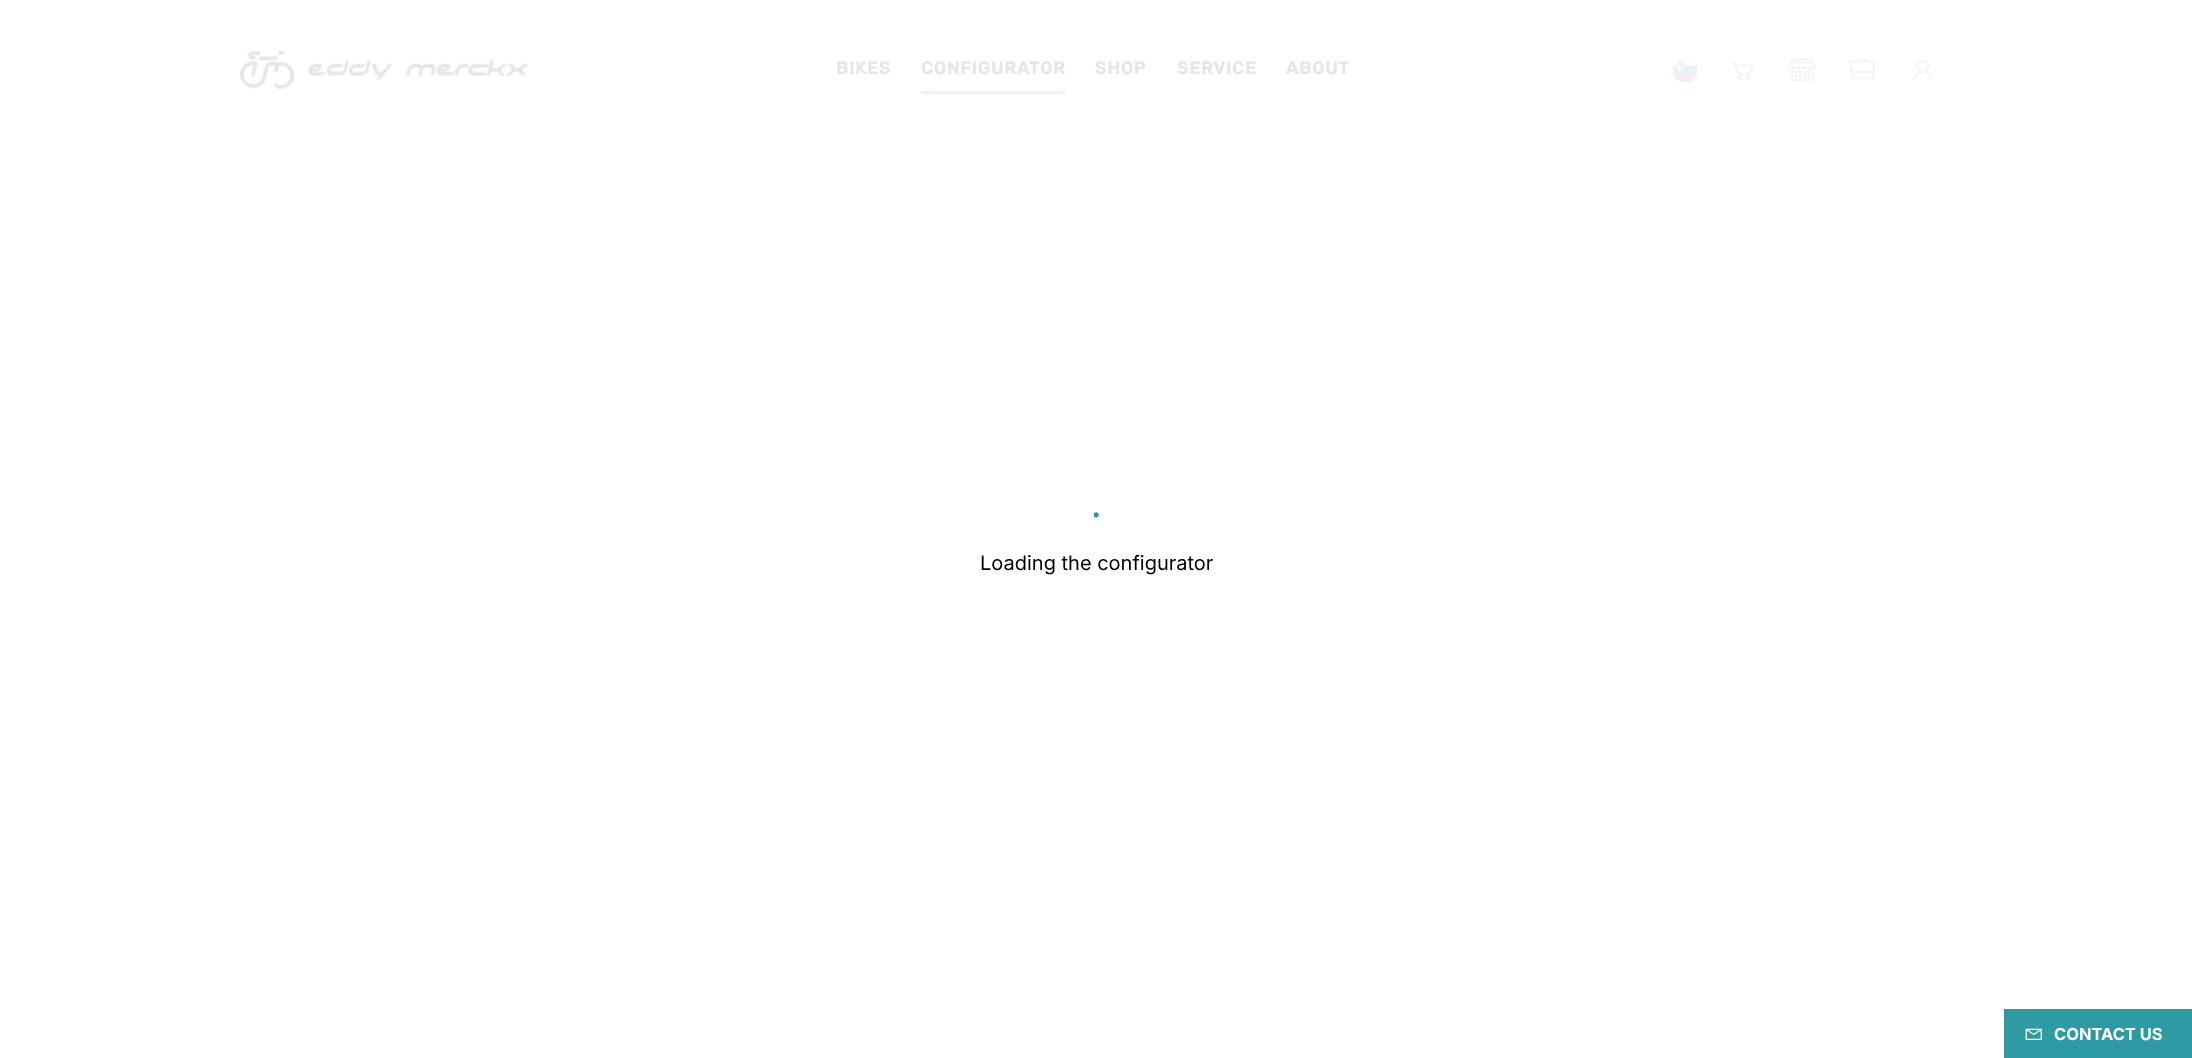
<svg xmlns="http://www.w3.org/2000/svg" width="2192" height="1058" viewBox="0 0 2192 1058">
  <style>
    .t1 { font: bold 17.5px Rubik; letter-spacing: 0.9px; fill: #e6e6e6; }
    .t2 { font: 20px Inter; fill: #000; }
    .t3 { font: bold 16.5px Inter; fill: #fff; }
  </style>
  <rect width="100%" height="100%" fill="#fff"/>
  <image x="240" y="51" width="289" height="38" href="images/1.png"/>
  <text x="836" y="74" class="t1">BIKES</text>
  <text x="921" y="74" class="t1">CONFIGURATOR</text>
  <rect x="921" y="91" width="144" height="3" fill="#eaf5f6"/>
  <text x="1095" y="74" class="t1">SHOP</text>
  <text x="1177" y="74" class="t1">SERVICE</text>
  <text x="1286" y="74" class="t1">ABOUT</text>
  <image x="1673" y="58" width="25" height="25" href="images/2.png"/>
  <image x="1731" y="61" width="23" height="20" href="images/3.png"/>
  <image x="1788" y="58" width="29" height="24" href="images/4.png"/>
  <image x="1850" y="57" width="25" height="23" href="images/5.png"/>
  <image x="1913" y="59" width="19" height="22" href="images/6.png"/>
  <circle cx="1096.2" cy="515" r="1.2" fill="none" stroke="#2e9ba2" stroke-width="2.5"/>
  <circle cx="1096.2" cy="515" r="1.2" fill="none" stroke="#2e9ba2" stroke-width="2.5"/>
  <text x="980" y="570" class="t2">Loading the configurator</text>
  <rect x="2004" y="1009" width="188" height="49" fill="#2e9ba2"/>
  <image x="2025" y="1028" width="17" height="12" href="images/7.png"/>
  <text x="2054" y="1040" class="t3">CONTACT US</text>
</svg>
